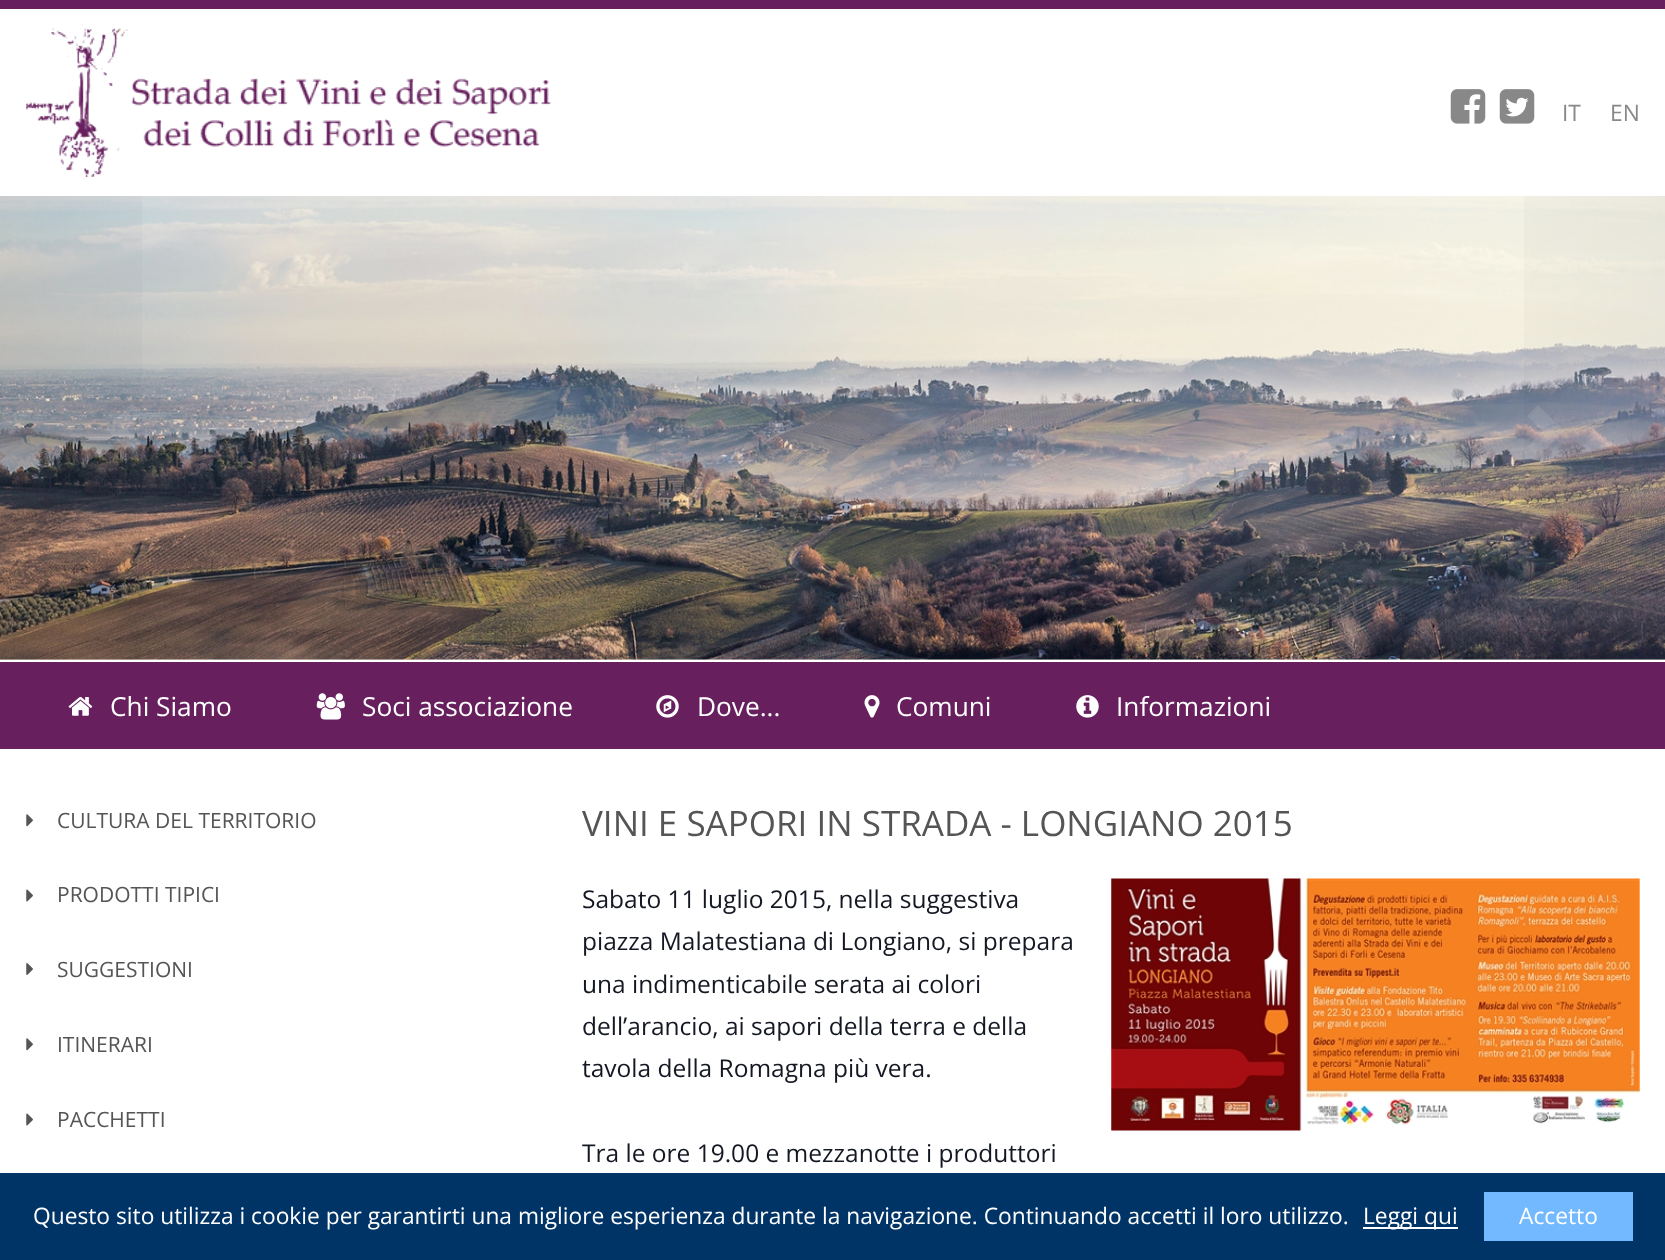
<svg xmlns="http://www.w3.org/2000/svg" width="1665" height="1260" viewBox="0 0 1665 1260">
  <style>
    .t1 { font: 22.75px Open Sans; fill: #888; }
    .t2 { font: 26.25px Open Sans; fill: #fff; }
    .t3 { font: 21px Open Sans; fill: #555; }
    .t4 { font: 35px Open Sans; fill: #555; }
    .t5 { font: 24.5px Open Sans; fill: #141823; }
    .t6 { font: 22.75px Open Sans; fill: #fff; }
  </style>
  <defs>
    <linearGradient id="g1" gradientUnits="userSpaceOnUse" x1="0" y1="428" x2="250" y2="428"><stop offset="0" stop-color="#000" stop-opacity="0.05"/><stop offset="1" stop-color="#000" stop-opacity="0"/></linearGradient>
    <linearGradient id="g2" gradientUnits="userSpaceOnUse" x1="1416" y1="428" x2="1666" y2="428"><stop offset="0" stop-color="#000" stop-opacity="0"/><stop offset="1" stop-color="#000" stop-opacity="0.05"/></linearGradient>
  </defs>
  <rect width="100%" height="100%" fill="#fff"/>
  <rect x="0" y="0" width="1665" height="9" fill="#671f5e"/>
  <image x="26" y="28" width="526" height="149" href="images/1.png"/>
  <image x="1450" y="89" width="36" height="35" href="images/2.png"/>
  <image x="1499" y="89" width="36" height="35" href="images/3.png"/>
  <text x="1562" y="121" class="t1">IT</text>
  <text x="1610" y="121" class="t1">EN</text>
  <image x="0" y="196" width="1665" height="464" href="images/4.png"/>
  <rect x="0" y="196" width="142" height="464" fill="url(#g1)"/>
  <path d="M106 429L132 455L142 444L127 429L142 413L132 403Z" fill="#ffffff1a"/>
  <rect x="1524" y="196" width="141" height="464" fill="url(#g2)"/>
  <path d="M1527 447L1543 431L1527 416L1538 405L1564 431L1538 457Z" fill="#ffffff1a"/>
  <rect x="0" y="662" width="1665" height="87" fill="#671f5e"/>
  <image x="68" y="697" width="25" height="19" href="images/5.png"/>
  <text x="110" y="716" class="t2">Chi Siamo</text>
  <image x="316" y="693" width="29" height="27" href="images/6.png"/>
  <text x="362" y="716" class="t2">Soci associazione</text>
  <image x="656" y="695" width="23" height="23" href="images/7.png"/>
  <text x="697" y="716" class="t2">Dove...</text>
  <image x="864" y="695" width="16" height="23" href="images/8.png"/>
  <text x="896" y="716" class="t2">Comuni</text>
  <image x="1076" y="695" width="23" height="23" href="images/9.png"/>
  <text x="1116" y="716" class="t2">Informazioni</text>
  <image x="26" y="814" width="7" height="13" href="images/10.png"/>
  <text x="57" y="828" class="t3">CULTURA DEL TERRITORIO</text>
  <image x="26" y="889" width="7" height="13" href="images/11.png"/>
  <text x="57" y="902" class="t3">PRODOTTI TIPICI</text>
  <image x="26" y="963" width="7" height="12" href="images/12.png"/>
  <text x="57" y="977" class="t3">SUGGESTIONI</text>
  <image x="26" y="1038" width="7" height="13" href="images/10.png"/>
  <text x="57" y="1052" class="t3">ITINERARI</text>
  <image x="26" y="1113" width="7" height="13" href="images/11.png"/>
  <text x="57" y="1127" class="t3">PACCHETTI</text>
  <text x="582" y="836" class="t4">VINI E SAPORI IN STRADA - LONGIANO 2015</text>
  <text x="582" y="908" class="t5">Sabato 11 luglio 2015, nella suggestiva</text>
  <image x="1111" y="878" width="529" height="253" href="images/13.png"/>
  <text x="582" y="950" class="t5">piazza Malatestiana di Longiano, si prepara</text>
  <text x="582" y="993" class="t5">una indimenticabile serata ai colori</text>
  <text x="582" y="1035" class="t5">dell’arancio, ai sapori della terra e della</text>
  <text x="582" y="1077" class="t5">tavola della Romagna più vera.</text>
  <text x="582" y="1162" class="t5">Tra le ore 19.00 e mezzanotte i produttori</text>
  <rect x="0" y="1173" width="1665" height="87" fill="#036"/>
  <text x="33" y="1224" class="t6">Questo sito utilizza i cookie per garantirti una migliore esperienza durante la navigazione. Continuando accetti il loro utilizzo.</text>
  <rect x="1363" y="1227" width="95" height="2" fill="#fff"/>
  <text x="1363" y="1224" class="t6">Leggi qui</text>
  <rect x="1484" y="1192" width="149" height="49" fill="#73b9ff"/>
  <text x="1519" y="1224" class="t6">Accetto</text>
</svg>
